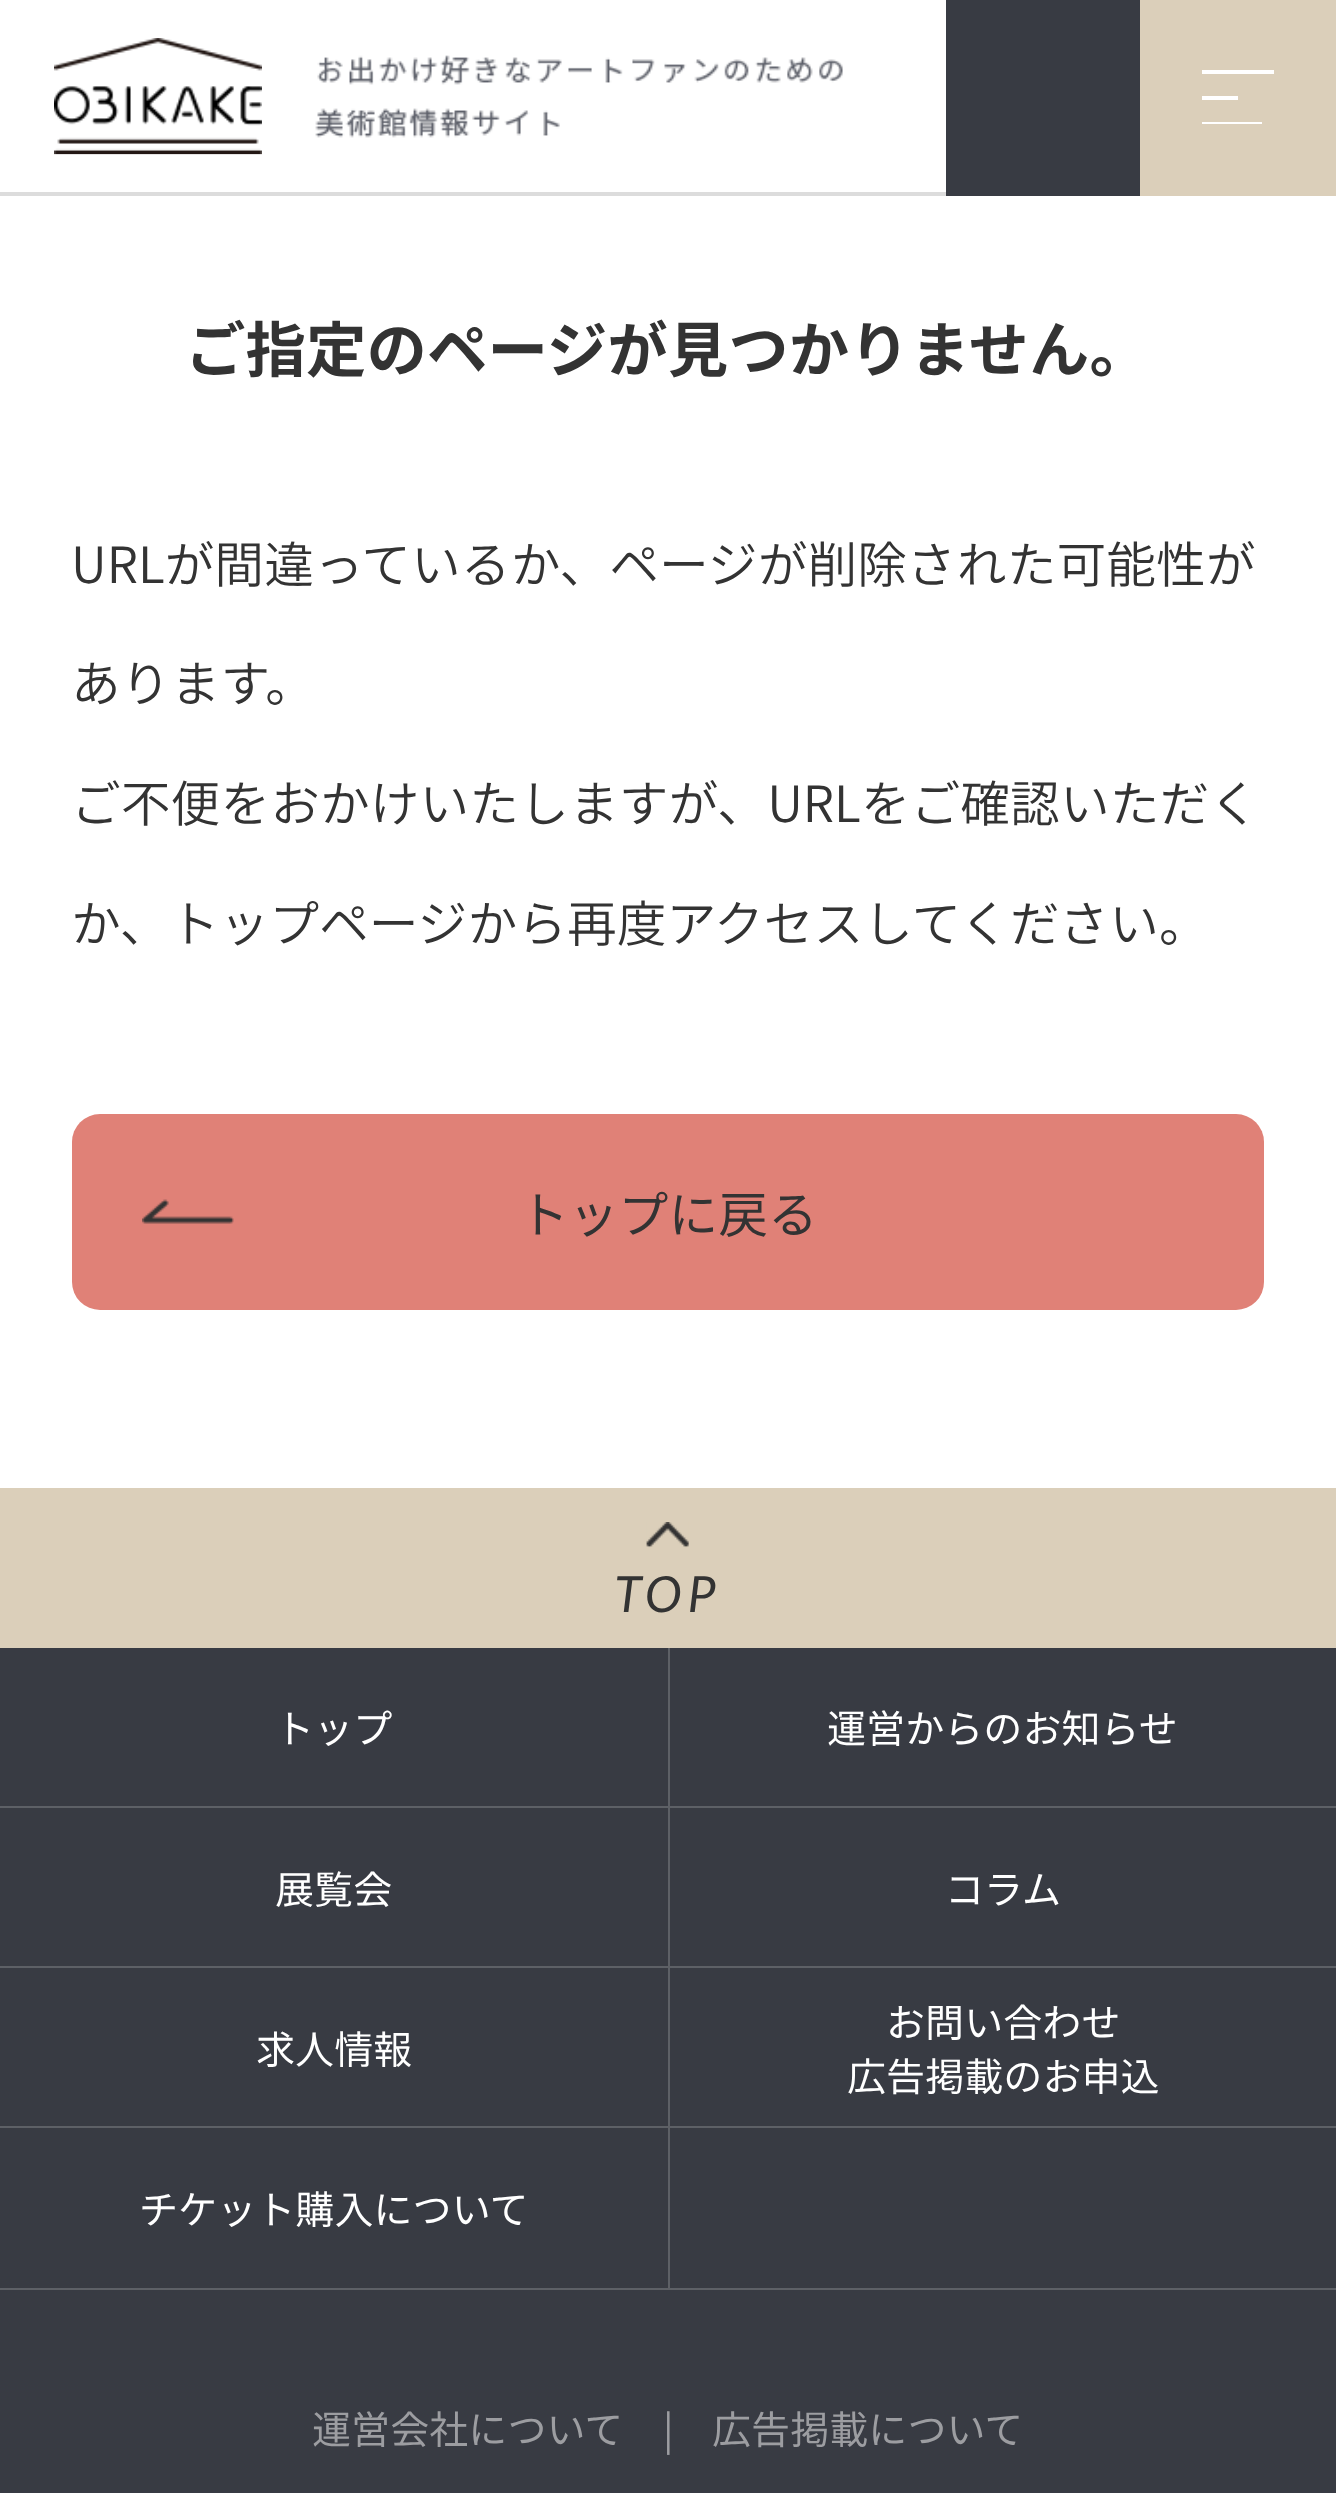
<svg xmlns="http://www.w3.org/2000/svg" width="1336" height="2493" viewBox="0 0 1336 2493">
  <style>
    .t1 { font: bold 60.5px Noto Sans JP; fill: #333; }
    .t2 { font: 300 49.8px Noto Sans JP; fill: #333; }
    .t3 { font: 49.8px Noto Sans JP; fill: #333; }
    .t4 { font: italic 49.8px Lato; letter-spacing: 6px; fill: #333; }
    .t5 { font: 39.1px Noto Sans JP; fill: #fff; }
    .t6 { font: 39.1px Noto Sans JP; fill: #9c9da1; }
  </style>
  <rect width="100%" height="100%" fill="#fff"/>
  <rect x="0" y="192" width="946" height="4" fill="#dcdcdc"/>
  <image x="54" y="38" width="208" height="117" href="images/1.png"/>
  <image x="315" y="55" width="528" height="83" href="images/2.png"/>
  <rect x="946" y="0" width="194" height="196" fill="#383b43"/>
  <rect x="1140" y="0" width="196" height="196" fill="#dbcfba"/>
  <rect x="1202" y="70" width="72" height="4" fill="#fff"/>
  <rect x="1202" y="96" width="36" height="4" fill="#fff"/>
  <rect x="1202" y="122" width="60" height="2" fill="#fff"/>
  <text x="185" y="372" class="t1">ご指定のページが見つかりません。</text>
  <text x="71" y="583" class="t2">URLが間違っているか、ページが削除された可能性が</text>
  <text x="71" y="702" class="t2">あります。</text>
  <text x="71" y="822" class="t2">ご不便をおかけいたしますが、URLをご確認いただく</text>
  <text x="71" y="942" class="t2">か、トップページから再度アクセスしてください。</text>
  <rect x="72" y="1114" width="1192" height="196" rx="28" fill="#e08177"/>
  <image x="142" y="1199" width="92" height="25" href="images/3.png"/>
  <text x="519" y="1233" class="t3">トップに戻る</text>
  <rect x="0" y="1488" width="1336" height="160" fill="#dbcfba"/>
  <image x="646" y="1522" width="43" height="26" href="images/4.png"/>
  <text x="614" y="1612" class="t4">TOP</text>
  <rect x="0" y="1648" width="1336" height="845" fill="#383b43"/>
  <rect x="0" y="1806" width="1336" height="2" fill="#5d6066"/>
  <text x="275" y="1743" class="t5">トップ</text>
  <rect x="668" y="1648" width="2" height="160" fill="#5d6066"/>
  <text x="827" y="1743" class="t5">運営からのお知らせ</text>
  <rect x="0" y="1966" width="1336" height="2" fill="#5d6066"/>
  <text x="275" y="1904" class="t5">展覧会</text>
  <rect x="668" y="1808" width="2" height="160" fill="#5d6066"/>
  <text x="945" y="1904" class="t5">コラム</text>
  <rect x="0" y="2126" width="1336" height="2" fill="#5d6066"/>
  <text x="256" y="2064" class="t5">求人情報</text>
  <rect x="668" y="1968" width="2" height="160" fill="#5d6066"/>
  <text x="886" y="2037" class="t5">お問い合わせ</text>
  <text x="847" y="2091" class="t5">広告掲載のお申込</text>
  <rect x="0" y="2288" width="1336" height="2" fill="#5d6066"/>
  <text x="139" y="2224" class="t5">チケット購入について</text>
  <rect x="668" y="2128" width="2" height="162" fill="#5d6066"/>
  <text x="312" y="2444" class="t6">運営会社について</text>
  <text x="663" y="2444" class="t6">|</text>
  <text x="712" y="2444" class="t6">広告掲載について</text>
</svg>
